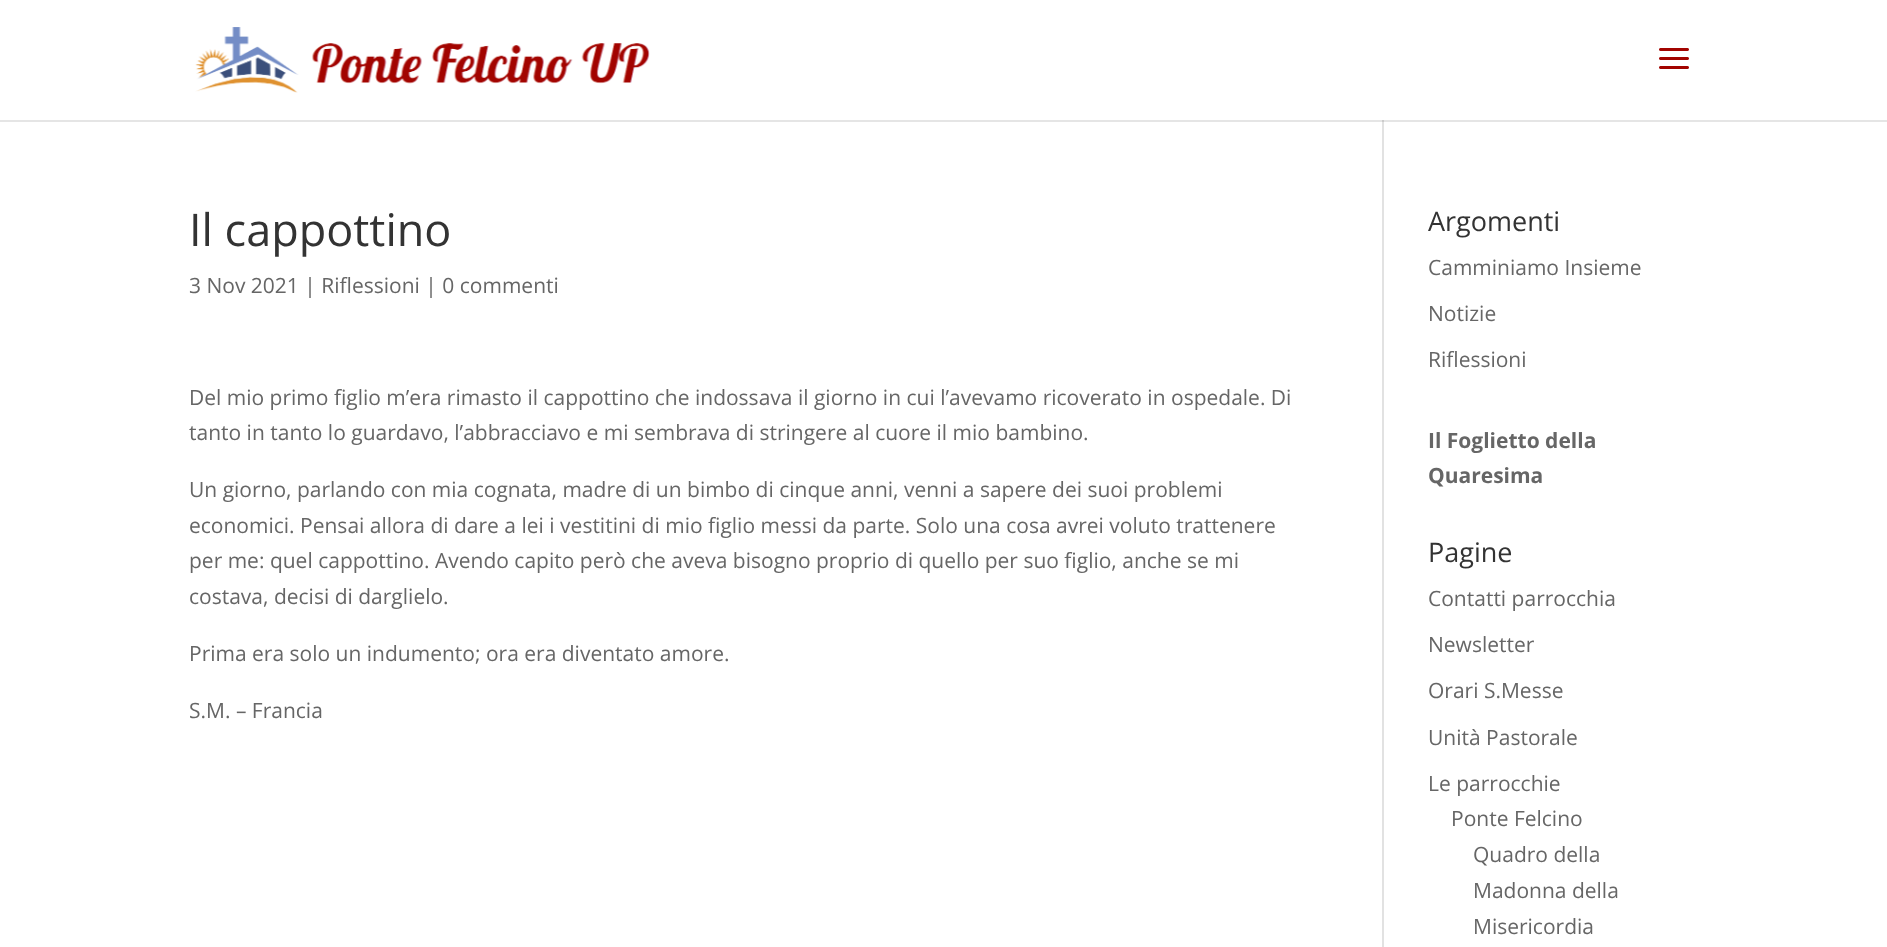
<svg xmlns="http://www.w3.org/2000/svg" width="1887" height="947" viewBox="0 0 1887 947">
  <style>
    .t1 { font: 45px Open Sans; fill: #333; }
    .t2 { font: 21px Open Sans; fill: #666; }
    .t3 { font: 27px Open Sans; fill: #333; }
    .t4 { font: bold 21px Open Sans; fill: #666; }
  </style>
  <rect width="100%" height="100%" fill="#fff"/>
  <rect x="1382" y="120" width="2" height="827" fill="#e2e2e2"/>
  <rect x="0" y="120" width="1887" height="2" fill="#0000001a"/>
  <image x="195" y="27" width="455" height="66" href="images/1.png"/>
  <image x="1659" y="48" width="30" height="21" href="images/2.png"/>
  <text x="189" y="246" class="t1">Il cappottino</text>
  <text x="189" y="293" class="t2">3 Nov 2021 | Riflessioni | 0 commenti</text>
  <text x="189" y="405" class="t2">Del mio primo figlio m’era rimasto il cappottino che indossava il giorno in cui l’avevamo ricoverato in ospedale. Di</text>
  <text x="189" y="440" class="t2">tanto in tanto lo guardavo, l’abbracciavo e mi sembrava di stringere al cuore il mio bambino.</text>
  <text x="189" y="497" class="t2">Un giorno, parlando con mia cognata, madre di un bimbo di cinque anni, venni a sapere dei suoi problemi</text>
  <text x="189" y="533" class="t2">economici. Pensai allora di dare a lei i vestitini di mio figlio messi da parte. Solo una cosa avrei voluto trattenere</text>
  <text x="189" y="568" class="t2">per me: quel cappottino. Avendo capito però che aveva bisogno proprio di quello per suo figlio, anche se mi</text>
  <text x="189" y="604" class="t2">costava, decisi di darglielo.</text>
  <text x="189" y="661" class="t2">Prima era solo un indumento; ora era diventato amore.</text>
  <text x="189" y="718" class="t2">S.M. – Francia</text>
  <text x="1428" y="231" class="t3">Argomenti</text>
  <text x="1428" y="275" class="t2">Camminiamo Insieme</text>
  <text x="1428" y="321" class="t2">Notizie</text>
  <text x="1428" y="367" class="t2">Riflessioni</text>
  <text x="1428" y="448" class="t4">Il Foglietto della</text>
  <text x="1428" y="483" class="t4">Quaresima</text>
  <text x="1428" y="562" class="t3">Pagine</text>
  <text x="1428" y="606" class="t2">Contatti parrocchia</text>
  <text x="1428" y="652" class="t2">Newsletter</text>
  <text x="1428" y="698" class="t2">Orari S.Messe</text>
  <text x="1428" y="745" class="t2">Unità Pastorale</text>
  <text x="1428" y="791" class="t2">Le parrocchie</text>
  <text x="1451" y="826" class="t2">Ponte Felcino</text>
  <text x="1473" y="862" class="t2">Quadro della</text>
  <text x="1473" y="898" class="t2">Madonna della</text>
  <text x="1473" y="934" class="t2">Misericordia</text>
</svg>
